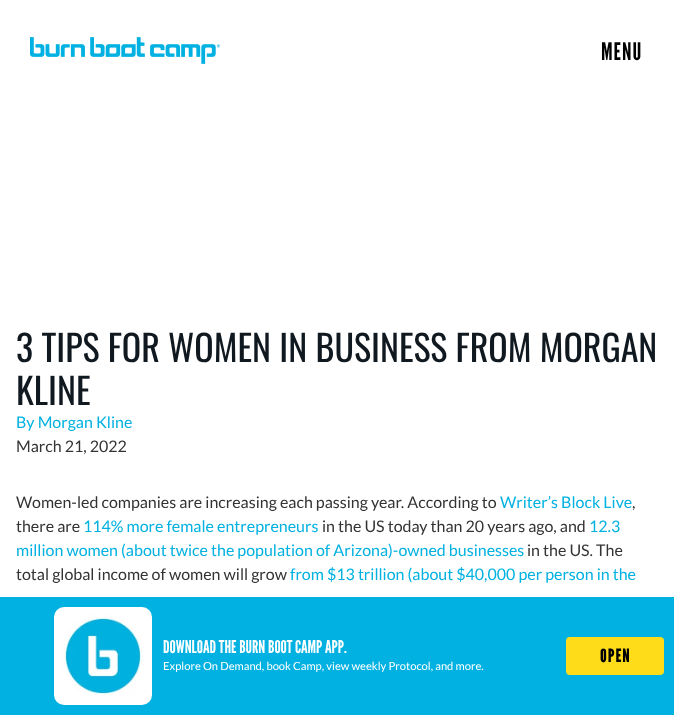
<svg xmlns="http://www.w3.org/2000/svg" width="674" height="715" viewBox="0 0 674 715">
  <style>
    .t1 { font: 24px League Gothic; letter-spacing: 1px; fill: #000; }
    .t2 { font: 36px Oswald; fill: #101820; }
    .t3 { font: 16px Lato; fill: #00b1e1; }
    .t4 { font: 16px Lato; fill: #333; }
    .t5 { font: 17.6px League Gothic; fill: #fff; }
    .t6 { font: 11.2px Lato; fill: #fff; }
    .t7 { font: bold 17.6px League Gothic; letter-spacing: 1.5px; fill: #000; }
  </style>
  <rect width="100%" height="100%" fill="#fff"/>
  <image x="30" y="37" width="190" height="27" href="images/1.png"/>
  <text x="601" y="60" class="t1">MENU</text>
  <text x="16" y="362" class="t2">3 TIPS FOR WOMEN IN BUSINESS FROM MORGAN</text>
  <text x="16" y="405" class="t2">KLINE</text>
  <text x="16" y="428" class="t3">By Morgan Kline</text>
  <text x="16" y="452" class="t4">March 21, 2022</text>
  <text x="16" y="508" class="t4">Women-led companies are increasing each passing year. According to</text>
  <text x="500" y="508" class="t3">Writer’s Block Live</text>
  <text x="632" y="508" class="t4">,</text>
  <text x="16" y="532" class="t4">there are</text>
  <text x="83" y="532" class="t3">114% more female entrepreneurs</text>
  <text x="322" y="532" class="t4">in the US today than 20 years ago, and</text>
  <text x="589" y="532" class="t3">12.3</text>
  <text x="16" y="556" class="t3">million women (about twice the population of Arizona)-owned businesses</text>
  <text x="527" y="556" class="t4">in the US. The</text>
  <text x="16" y="580" class="t4">total global income of women will grow</text>
  <text x="290" y="580" class="t3">from $13 trillion (about $40,000 per person in the</text>
  <rect x="0" y="597" width="674" height="118" fill="#00b1e1"/>
  <image x="54" y="607" width="98" height="98" href="images/2.png"/>
  <text x="163" y="653" class="t5">DOWNLOAD THE BURN BOOT CAMP APP.</text>
  <text x="163" y="670" class="t6">Explore On Demand, book Camp, view weekly Protocol, and more.</text>
  <rect x="566" y="637" width="98" height="38" rx="4" fill="#ffdc1a"/>
  <text x="600" y="662" class="t7">OPEN</text>
</svg>
